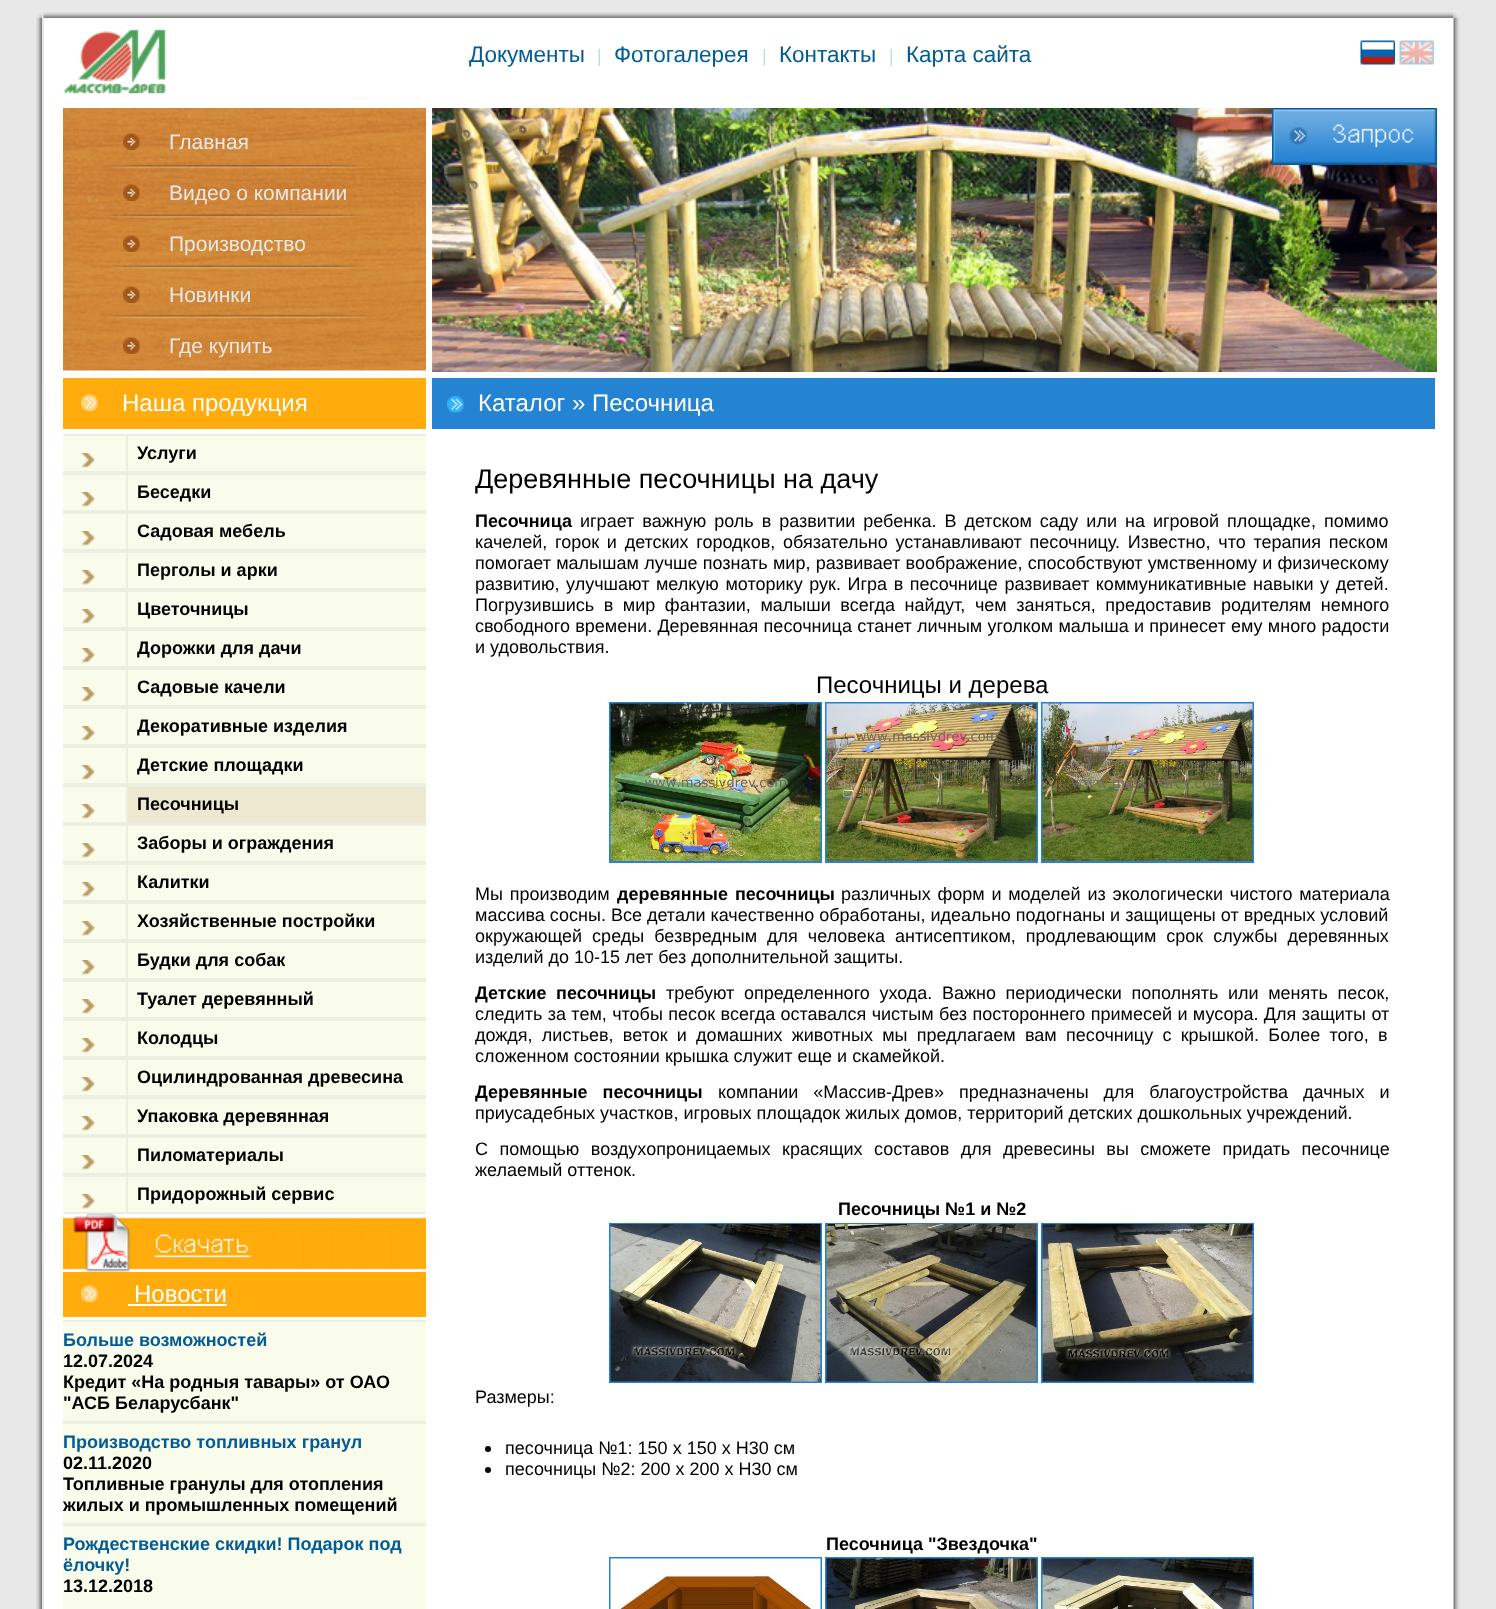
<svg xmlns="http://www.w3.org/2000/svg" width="1496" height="1609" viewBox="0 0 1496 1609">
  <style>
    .t1 { font: 22.5px Liberation Sans; fill: #025b93; }
    .t2 { font: 18px Liberation Sans; fill: #c4d9e5; }
    .t3 { font: 21px Liberation Sans; fill: #e8e8e8; }
    .t4 { font: 24px Liberation Sans; fill: #fff; }
    .t5 { font: bold 18px Liberation Sans; fill: #000; }
    .t6 { font: bold 18px Liberation Sans; fill: #025b93; }
    .t7 { font: 27px Liberation Sans; fill: #000; }
    .t8 { font: 18px Liberation Sans; fill: #000; }
    .t9 { font: 24px Liberation Sans; fill: #000; }
  </style>
  <rect width="100%" height="100%" fill="#e8e8e8"/>
  <image x="37" y="13" width="5" height="5" href="images/1.png"/>
  <image x="43" y="12" width="1411" height="6" href="images/2.png"/>
  <image x="1453" y="13" width="6" height="5" href="images/3.png"/>
  <image x="36" y="18" width="6" height="1591" href="images/4.png"/>
  <rect x="44" y="18" width="1410" height="1591" fill="#fff"/>
  <image x="64" y="29" width="102" height="65" href="images/5.png"/>
  <text x="469" y="62" class="t1">Документы</text>
  <text x="597" y="62" class="t2">|</text>
  <text x="614" y="62" class="t1">Фотогалерея</text>
  <text x="762" y="62" class="t2">|</text>
  <text x="779" y="62" class="t1">Контакты</text>
  <text x="889" y="62" class="t2">|</text>
  <text x="906" y="62" class="t1">Карта сайта</text>
  <image x="1360" y="40" width="35" height="25" href="images/6.png"/>
  <image x="1399" y="40" width="35" height="25" href="images/7.png"/>
  <image x="63" y="108" width="363" height="263" href="images/8.png"/>
  <image x="123" y="133" width="17" height="17" href="images/9.png"/>
  <text x="169" y="149" class="t3">Главная</text>
  <image x="123" y="184" width="17" height="17" href="images/10.png"/>
  <text x="169" y="200" class="t3">Видео о компании</text>
  <image x="123" y="235" width="17" height="17" href="images/11.png"/>
  <text x="169" y="251" class="t3">Производство</text>
  <image x="123" y="286" width="17" height="17" href="images/12.png"/>
  <text x="169" y="302" class="t3">Новинки</text>
  <image x="123" y="337" width="17" height="17" href="images/13.png"/>
  <text x="169" y="353" class="t3">Где купить</text>
  <image x="432" y="108" width="1005" height="264" href="images/14.png"/>
  <image x="1272" y="108" width="165" height="57" href="images/15.png"/>
  <rect x="63" y="378" width="363" height="51" fill="#ffac0c"/>
  <image x="81" y="394" width="17" height="17" href="images/16.png"/>
  <text x="122" y="411" class="t4">Наша продукция</text>
  <rect x="432" y="378" width="1003" height="51" fill="#2583d3"/>
  <image x="447" y="396" width="17" height="17" href="images/17.png"/>
  <text x="478" y="411" class="t4">Каталог » Песочница</text>
  <rect x="63" y="436" width="363" height="776" fill="#f9fceb"/>
  <rect x="63" y="434" width="363" height="2" fill="#ecefdf"/>
  <rect x="126" y="434" width="2" height="39" fill="#ecefdf"/>
  <rect x="63" y="471" width="363" height="2" fill="#ecefdf"/>
  <image x="81" y="453" width="14" height="15" href="images/18.png"/>
  <text x="137" y="459" class="t5">Услуги</text>
  <rect x="63" y="473" width="363" height="2" fill="#ecefdf"/>
  <rect x="126" y="473" width="2" height="39" fill="#ecefdf"/>
  <rect x="63" y="510" width="363" height="2" fill="#ecefdf"/>
  <image x="81" y="492" width="14" height="15" href="images/18.png"/>
  <text x="137" y="498" class="t5">Беседки</text>
  <rect x="63" y="512" width="363" height="2" fill="#ecefdf"/>
  <rect x="126" y="512" width="2" height="39" fill="#ecefdf"/>
  <rect x="63" y="549" width="363" height="2" fill="#ecefdf"/>
  <image x="81" y="531" width="14" height="15" href="images/18.png"/>
  <text x="137" y="537" class="t5">Садовая мебель</text>
  <rect x="63" y="551" width="363" height="2" fill="#ecefdf"/>
  <rect x="126" y="551" width="2" height="39" fill="#ecefdf"/>
  <rect x="63" y="588" width="363" height="2" fill="#ecefdf"/>
  <image x="81" y="570" width="14" height="15" href="images/18.png"/>
  <text x="137" y="576" class="t5">Перголы и арки</text>
  <rect x="63" y="590" width="363" height="2" fill="#ecefdf"/>
  <rect x="126" y="590" width="2" height="39" fill="#ecefdf"/>
  <rect x="63" y="627" width="363" height="2" fill="#ecefdf"/>
  <image x="81" y="609" width="14" height="15" href="images/18.png"/>
  <text x="137" y="615" class="t5">Цветочницы</text>
  <rect x="63" y="629" width="363" height="2" fill="#ecefdf"/>
  <rect x="126" y="629" width="2" height="39" fill="#ecefdf"/>
  <rect x="63" y="666" width="363" height="2" fill="#ecefdf"/>
  <image x="81" y="648" width="14" height="15" href="images/18.png"/>
  <text x="137" y="654" class="t5">Дорожки для дачи</text>
  <rect x="63" y="668" width="363" height="2" fill="#ecefdf"/>
  <rect x="126" y="668" width="2" height="39" fill="#ecefdf"/>
  <rect x="63" y="705" width="363" height="2" fill="#ecefdf"/>
  <image x="81" y="687" width="14" height="15" href="images/18.png"/>
  <text x="137" y="693" class="t5">Садовые качели</text>
  <rect x="63" y="707" width="363" height="2" fill="#ecefdf"/>
  <rect x="126" y="707" width="2" height="39" fill="#ecefdf"/>
  <rect x="63" y="744" width="363" height="2" fill="#ecefdf"/>
  <image x="81" y="726" width="14" height="15" href="images/18.png"/>
  <text x="137" y="732" class="t5">Декоративные изделия</text>
  <rect x="63" y="746" width="363" height="2" fill="#ecefdf"/>
  <rect x="126" y="746" width="2" height="39" fill="#ecefdf"/>
  <rect x="63" y="783" width="363" height="2" fill="#ecefdf"/>
  <image x="81" y="765" width="14" height="15" href="images/18.png"/>
  <text x="137" y="771" class="t5">Детские площадки</text>
  <rect x="63" y="785" width="363" height="2" fill="#ecefdf"/>
  <rect x="126" y="785" width="2" height="39" fill="#ecefdf"/>
  <rect x="63" y="822" width="363" height="2" fill="#ecefdf"/>
  <image x="81" y="804" width="14" height="15" href="images/18.png"/>
  <rect x="128" y="787" width="298" height="35" fill="#ede9d0"/>
  <text x="137" y="810" class="t5">Песочницы</text>
  <rect x="63" y="824" width="363" height="2" fill="#ecefdf"/>
  <rect x="126" y="824" width="2" height="39" fill="#ecefdf"/>
  <rect x="63" y="861" width="363" height="2" fill="#ecefdf"/>
  <image x="81" y="843" width="14" height="15" href="images/18.png"/>
  <text x="137" y="849" class="t5">Заборы и ограждения</text>
  <rect x="63" y="863" width="363" height="2" fill="#ecefdf"/>
  <rect x="126" y="863" width="2" height="39" fill="#ecefdf"/>
  <rect x="63" y="900" width="363" height="2" fill="#ecefdf"/>
  <image x="81" y="882" width="14" height="15" href="images/18.png"/>
  <text x="137" y="888" class="t5">Калитки</text>
  <rect x="63" y="902" width="363" height="2" fill="#ecefdf"/>
  <rect x="126" y="902" width="2" height="39" fill="#ecefdf"/>
  <rect x="63" y="939" width="363" height="2" fill="#ecefdf"/>
  <image x="81" y="921" width="14" height="15" href="images/18.png"/>
  <text x="137" y="927" class="t5">Хозяйственные постройки</text>
  <rect x="63" y="941" width="363" height="2" fill="#ecefdf"/>
  <rect x="126" y="941" width="2" height="39" fill="#ecefdf"/>
  <rect x="63" y="978" width="363" height="2" fill="#ecefdf"/>
  <image x="81" y="960" width="14" height="15" href="images/18.png"/>
  <text x="137" y="966" class="t5">Будки для собак</text>
  <rect x="63" y="980" width="363" height="2" fill="#ecefdf"/>
  <rect x="126" y="980" width="2" height="39" fill="#ecefdf"/>
  <rect x="63" y="1017" width="363" height="2" fill="#ecefdf"/>
  <image x="81" y="999" width="14" height="15" href="images/18.png"/>
  <text x="137" y="1005" class="t5">Туалет деревянный</text>
  <rect x="63" y="1019" width="363" height="2" fill="#ecefdf"/>
  <rect x="126" y="1019" width="2" height="39" fill="#ecefdf"/>
  <rect x="63" y="1056" width="363" height="2" fill="#ecefdf"/>
  <image x="81" y="1038" width="14" height="15" href="images/18.png"/>
  <text x="137" y="1044" class="t5">Колодцы</text>
  <rect x="63" y="1058" width="363" height="2" fill="#ecefdf"/>
  <rect x="126" y="1058" width="2" height="39" fill="#ecefdf"/>
  <rect x="63" y="1095" width="363" height="2" fill="#ecefdf"/>
  <image x="81" y="1077" width="14" height="15" href="images/18.png"/>
  <text x="137" y="1083" class="t5">Оцилиндрованная древесина</text>
  <rect x="63" y="1097" width="363" height="2" fill="#ecefdf"/>
  <rect x="126" y="1097" width="2" height="39" fill="#ecefdf"/>
  <rect x="63" y="1134" width="363" height="2" fill="#ecefdf"/>
  <image x="81" y="1116" width="14" height="15" href="images/18.png"/>
  <text x="137" y="1122" class="t5">Упаковка деревянная</text>
  <rect x="63" y="1136" width="363" height="2" fill="#ecefdf"/>
  <rect x="126" y="1136" width="2" height="39" fill="#ecefdf"/>
  <rect x="63" y="1173" width="363" height="2" fill="#ecefdf"/>
  <image x="81" y="1155" width="14" height="15" href="images/18.png"/>
  <text x="137" y="1161" class="t5">Пиломатериалы</text>
  <rect x="63" y="1175" width="363" height="2" fill="#ecefdf"/>
  <rect x="126" y="1175" width="2" height="39" fill="#ecefdf"/>
  <rect x="63" y="1212" width="363" height="2" fill="#ecefdf"/>
  <image x="81" y="1194" width="14" height="15" href="images/18.png"/>
  <text x="137" y="1200" class="t5">Придорожный сервис</text>
  <image x="63" y="1213" width="363" height="59" href="images/19.png"/>
  <rect x="63" y="1272" width="363" height="45" fill="#ffac0c"/>
  <image x="81" y="1285" width="17" height="17" href="images/16.png"/>
  <text x="134" y="1302" class="t4">Новости</text>
  <rect x="128" y="1304" width="99" height="2" fill="#fff"/>
  <rect x="63" y="1322" width="363" height="99" fill="#f9fceb"/>
  <rect x="63" y="1320" width="363" height="2" fill="#ecefdf"/>
  <rect x="63" y="1421" width="363" height="3" fill="#ecefdf"/>
  <text x="63" y="1346" class="t6">Больше возможностей</text>
  <text x="63" y="1367" class="t5">12.07.2024</text>
  <text x="63" y="1388" class="t5">Кредит «На родныя тавары» от ОАО</text>
  <text x="63" y="1409" class="t5">"АСБ Беларусбанк"</text>
  <rect x="63" y="1424" width="363" height="99" fill="#f9fceb"/>
  <rect x="63" y="1523" width="363" height="3" fill="#ecefdf"/>
  <text x="63" y="1448" class="t6">Производство топливных гранул</text>
  <text x="63" y="1469" class="t5">02.11.2020</text>
  <text x="63" y="1490" class="t5">Топливные гранулы для отопления</text>
  <text x="63" y="1511" class="t5">жилых и промышленных помещений</text>
  <rect x="63" y="1526" width="363" height="83" fill="#f9fceb"/>
  <text x="63" y="1550" class="t6">Рождественские скидки! Подарок под</text>
  <text x="63" y="1571" class="t6">ёлочку!</text>
  <text x="63" y="1592" class="t5">13.12.2018</text>
  <text x="475" y="488" class="t7">Деревянные песочницы на дачу</text>
  <text x="475" y="527" class="t5">Песочница</text>
  <text x="580" y="527" word-spacing="3" class="t8">играет важную роль в развитии ребенка. В детском саду или на игровой площадке, помимо</text>
  <text x="475" y="548" word-spacing="2.75" class="t8">качелей, горок и детских городков, обязательно устанавливают песочницу. Известно, что терапия песком</text>
  <text x="475" y="569" word-spacing="0.25" class="t8">помогает малышам лучше познать мир, развивает воображение, способствуют умственному и физическому</text>
  <text x="475" y="590" word-spacing="1.6" class="t8">развитию, улучшают мелкую моторику рук. Игра в песочнице развивает коммуникативные навыки у детей.</text>
  <text x="475" y="611" word-spacing="4.6" class="t8">Погрузившись в мир фантазии, малыши всегда найдут, чем заняться, предоставив родителям немного</text>
  <text x="475" y="632" word-spacing="0.25" class="t8">свободного времени. Деревянная песочница станет личным уголком малыша и принесет ему много радости</text>
  <text x="475" y="653" class="t8">и удовольствия.</text>
  <text x="816" y="693" class="t9">Песочницы и дерева</text>
  <rect x="610" y="703" width="211" height="159" fill="none" stroke="#2583d3" stroke-width="2"/>
  <image x="610" y="703" width="211" height="158" href="images/20.png"/>
  <rect x="826" y="703" width="211" height="159" fill="none" stroke="#2583d3" stroke-width="2"/>
  <image x="826" y="703" width="211" height="158" href="images/21.png"/>
  <rect x="1042" y="703" width="211" height="159" fill="none" stroke="#2583d3" stroke-width="2"/>
  <image x="1042" y="703" width="211" height="158" href="images/22.png"/>
  <text x="475" y="900" word-spacing="1.75" class="t8">Мы производим</text>
  <text x="617" y="900" word-spacing="2" class="t5">деревянные песочницы</text>
  <text x="841" y="900" word-spacing="1.75" class="t8">различных форм и моделей из экологически чистого материала</text>
  <text x="475" y="921" class="t8">массива сосны. Все детали качественно обработаны, идеально подогнаны и защищены от вредных условий</text>
  <text x="475" y="942" word-spacing="5" class="t8">окружающей среды безвредным для человека антисептиком, продлевающим срок службы деревянных</text>
  <text x="475" y="963" class="t8">изделий до 10-15 лет без дополнительной защиты.</text>
  <text x="475" y="999" word-spacing="4.6" class="t5">Детские песочницы</text>
  <text x="666" y="999" word-spacing="4.6" class="t8">требуют определенного ухода. Важно периодически пополнять или менять песок,</text>
  <text x="475" y="1020" word-spacing="0.4" class="t8">следить за тем, чтобы песок всегда оставался чистым без постороннего примесей и мусора. Для защиты от</text>
  <text x="475" y="1041" word-spacing="4.25" class="t8">дождя, листьев, веток и домашних животных мы предлагаем вам песочницу с крышкой. Более того, в</text>
  <text x="475" y="1062" class="t8">сложенном состоянии крышка служит еще и скамейкой.</text>
  <text x="475" y="1098" word-spacing="10" class="t5">Деревянные песочницы</text>
  <text x="718" y="1098" word-spacing="10" class="t8">компании «Массив-Древ» предназначены для благоустройства дачных и</text>
  <text x="475" y="1119" class="t8">приусадебных участков, игровых площадок жилых домов, территорий детских дошкольных учреждений.</text>
  <text x="475" y="1155" word-spacing="6.5" class="t8">С помощью воздухопроницаемых красящих составов для древесины вы сможете придать песочнице</text>
  <text x="475" y="1176" class="t8">желаемый оттенок.</text>
  <text x="838" y="1215" class="t5">Песочницы №1 и №2</text>
  <rect x="610" y="1224" width="211" height="158" fill="none" stroke="#2583d3" stroke-width="2"/>
  <image x="610" y="1224" width="211" height="158" href="images/23.png"/>
  <rect x="826" y="1224" width="211" height="158" fill="none" stroke="#2583d3" stroke-width="2"/>
  <image x="826" y="1224" width="211" height="158" href="images/24.png"/>
  <rect x="1042" y="1224" width="211" height="158" fill="none" stroke="#2583d3" stroke-width="2"/>
  <image x="1042" y="1224" width="211" height="158" href="images/25.png"/>
  <text x="475" y="1403" class="t8">Размеры:</text>
  <circle cx="488" cy="1449" r="3" fill="#000"/>
  <text x="505" y="1454" class="t8">песочница №1: 150 x 150 x H30 см</text>
  <circle cx="488" cy="1470" r="3" fill="#000"/>
  <text x="505" y="1475" class="t8">песочницы №2: 200 x 200 x H30 см</text>
  <text x="826" y="1550" class="t5">Песочница "Звездочка"</text>
  <rect x="610" y="1558" width="211" height="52" fill="none" stroke="#2583d3" stroke-width="2"/>
  <image x="610" y="1558" width="211" height="51" href="images/26.png"/>
  <rect x="826" y="1558" width="211" height="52" fill="none" stroke="#2583d3" stroke-width="2"/>
  <image x="826" y="1558" width="211" height="51" href="images/27.png"/>
  <rect x="1042" y="1558" width="211" height="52" fill="none" stroke="#2583d3" stroke-width="2"/>
  <image x="1042" y="1558" width="211" height="51" href="images/28.png"/>
  <image x="1453" y="18" width="7" height="1591" href="images/29.png"/>
</svg>
